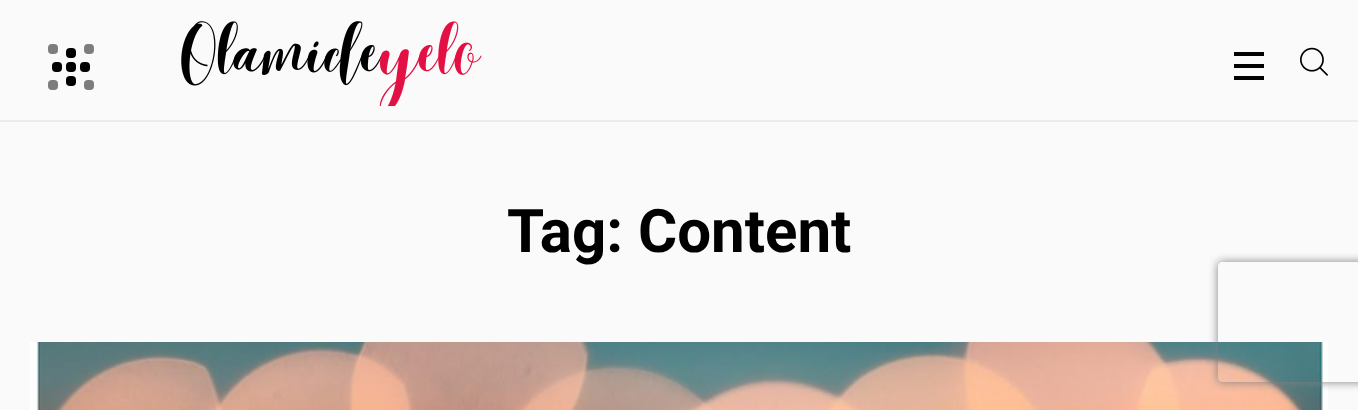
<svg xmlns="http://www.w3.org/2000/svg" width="1358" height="410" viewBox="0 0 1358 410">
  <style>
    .t1 { font: bold 60px Roboto; fill: #000; }
  </style>
  <defs>
    <clipPath id="clip1"><path d="M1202 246H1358V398H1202ZM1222 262H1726C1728 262 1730 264 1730 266V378C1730 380 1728 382 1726 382H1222C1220 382 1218 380 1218 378V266C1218 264 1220 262 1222 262Z" clip-rule="evenodd"/></clipPath>
  </defs>
  <rect width="100%" height="100%" fill="#fafafa"/>
  <rect x="0" y="120" width="1358" height="2" fill="#ebebeb"/>
  <rect x="48" y="44" width="10" height="10" rx="4" fill="#7d7d7d"/>
  <rect x="66" y="48" width="10" height="10" rx="4" fill="#000"/>
  <rect x="84" y="44" width="10" height="10" rx="4" fill="#7d7d7d"/>
  <rect x="52" y="62" width="10" height="10" rx="4" fill="#000"/>
  <rect x="66" y="62" width="10" height="10" rx="4" fill="#000"/>
  <rect x="80" y="62" width="10" height="10" rx="4" fill="#000"/>
  <rect x="48" y="80" width="10" height="10" rx="4" fill="#7d7d7d"/>
  <rect x="66" y="76" width="10" height="10" rx="4" fill="#000"/>
  <rect x="84" y="80" width="10" height="10" rx="4" fill="#7d7d7d"/>
  <image x="181" y="21" width="301" height="86" href="images/1.png"/>
  <rect x="1234" y="52" width="30" height="4" fill="#000"/>
  <rect x="1234" y="64" width="30" height="4" fill="#000"/>
  <rect x="1234" y="76" width="30" height="4" fill="#000"/>
  <image x="1300" y="47" width="28" height="29" href="images/2.png"/>
  <text x="507" y="252" class="t1">Tag: Content</text>
  <rect x="30" y="342" width="1298" height="68" fill="#fff"/>
  <image x="36" y="342" width="1287" height="68" href="images/3.png"/>
  <g clip-path="url(#clip1)">
    <rect x="1218" y="262" width="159" height="120" rx="4" fill="#808080" filter="blur(5px)"/>
  </g>
</svg>
